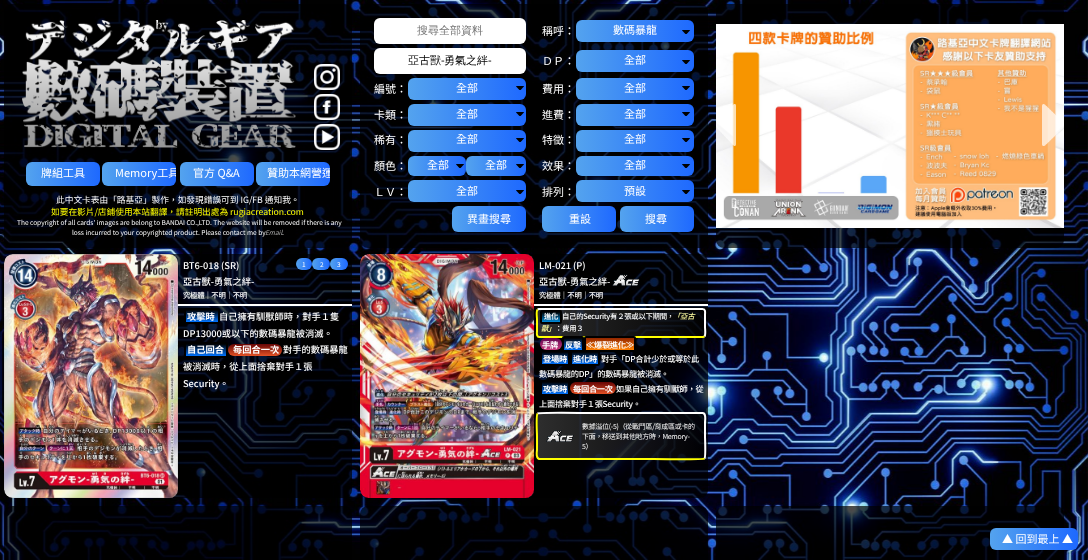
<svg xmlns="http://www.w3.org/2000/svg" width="1088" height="560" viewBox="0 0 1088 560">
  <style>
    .t1 { font: 11px Noto Sans TC; fill: #fff; }
    .t2 { font: 8.7px Noto Sans TC; fill: #fff; }
    .t3 { font: 8.7px Noto Sans TC; fill: #ff0; }
    .t4 { font: 6.55px Noto Sans TC; fill: #fff; }
    .t5 { font: italic 6.55px Noto Sans TC; fill: #aaa; }
    .t6 { font: 500 11px WenQuanYi Zen Hei; fill: #757575; }
    .t7 { font: 500 11px WenQuanYi Zen Hei; fill: #000; }
    .t8 { font: 11px Liberation Sans; fill: #000; }
    .t9 { font: 500 9.25px Noto Sans TC; fill: #fff; }
    .t10 { font: 500 7.4px Noto Sans TC; letter-spacing: -0.3px; fill: #fff; }
    .t11 { font: bold 9.25px Noto Sans TC; fill: #fff; }
    .t12 { font: bold 7.4px Noto Sans TC; letter-spacing: -0.3px; fill: #fff; }
    .t13 { font: italic 500 7.4px Noto Sans TC; letter-spacing: -0.3px; fill: #ffff9f; }
    .t14 { font: bold 8.25px Noto Sans TC; letter-spacing: -0.3px; fill: #fff; }
    .t15 { font: 500 8.25px Noto Sans TC; letter-spacing: -0.3px; fill: #fff; }
    .t16 { font: 7px Noto Sans TC; letter-spacing: -0.3px; fill: #fff; }
  </style>
  <defs>
    <linearGradient id="g1" gradientUnits="userSpaceOnUse" x1="26" y1="174" x2="100" y2="174"><stop offset="0" stop-color="#54a3ee"/><stop offset="1" stop-color="#1e69ff"/></linearGradient>
    <linearGradient id="g2" gradientUnits="userSpaceOnUse" x1="102" y1="174" x2="176" y2="174"><stop offset="0" stop-color="#54a3ee"/><stop offset="1" stop-color="#1e69ff"/></linearGradient>
    <clipPath id="clip1"><rect x="102" y="162" width="74" height="24" rx="6"/></clipPath>
    <linearGradient id="g3" gradientUnits="userSpaceOnUse" x1="180" y1="174" x2="254" y2="174"><stop offset="0" stop-color="#54a3ee"/><stop offset="1" stop-color="#1e69ff"/></linearGradient>
    <linearGradient id="g4" gradientUnits="userSpaceOnUse" x1="256" y1="174" x2="330" y2="174"><stop offset="0" stop-color="#54a3ee"/><stop offset="1" stop-color="#1e69ff"/></linearGradient>
    <clipPath id="clip2"><rect x="256" y="162" width="74" height="24" rx="6"/></clipPath>
    <linearGradient id="g5" gradientUnits="userSpaceOnUse" x1="452" y1="219" x2="526" y2="219"><stop offset="0" stop-color="#54a3ee"/><stop offset="1" stop-color="#1e69ff"/></linearGradient>
    <linearGradient id="g6" gradientUnits="userSpaceOnUse" x1="542" y1="219" x2="616" y2="219"><stop offset="0" stop-color="#54a3ee"/><stop offset="1" stop-color="#1e69ff"/></linearGradient>
    <linearGradient id="g7" gradientUnits="userSpaceOnUse" x1="620" y1="219" x2="694" y2="219"><stop offset="0" stop-color="#54a3ee"/><stop offset="1" stop-color="#1e69ff"/></linearGradient>
    <linearGradient id="g8" gradientUnits="userSpaceOnUse" x1="296" y1="264" x2="312" y2="264"><stop offset="0" stop-color="#54a3ee"/><stop offset="1" stop-color="#1e69ff"/></linearGradient>
    <linearGradient id="g9" gradientUnits="userSpaceOnUse" x1="312" y1="264" x2="330" y2="264"><stop offset="0" stop-color="#54a3ee"/><stop offset="1" stop-color="#1e69ff"/></linearGradient>
    <linearGradient id="g10" gradientUnits="userSpaceOnUse" x1="330" y1="264" x2="348" y2="264"><stop offset="0" stop-color="#54a3ee"/><stop offset="1" stop-color="#1e69ff"/></linearGradient>
    <linearGradient id="g11" gradientUnits="userSpaceOnUse" x1="202" y1="310" x2="202" y2="322"><stop offset="0" stop-color="#000"/><stop offset="1" stop-color="#0073ff"/></linearGradient>
    <linearGradient id="g12" gradientUnits="userSpaceOnUse" x1="206" y1="344" x2="206" y2="356"><stop offset="0" stop-color="#000"/><stop offset="1" stop-color="#0073ff"/></linearGradient>
    <linearGradient id="g13" gradientUnits="userSpaceOnUse" x1="255" y1="344" x2="255" y2="356"><stop offset="0" stop-color="#660605"/><stop offset="1" stop-color="#e35125"/></linearGradient>
    <clipPath id="clip3"><rect x="536" y="308" width="170" height="30" rx="3"/></clipPath>
    <linearGradient id="g14" gradientUnits="userSpaceOnUse" x1="372" y1="323" x2="538" y2="323"><stop offset="0" stop-color="#444" stop-opacity="0.67"/><stop offset="1" stop-color="#000" stop-opacity="0.67"/></linearGradient>
    <linearGradient id="g15" gradientUnits="userSpaceOnUse" x1="538" y1="323" x2="704" y2="323"><stop offset="0" stop-color="#444" stop-opacity="0.67"/><stop offset="1" stop-color="#000" stop-opacity="0.67"/></linearGradient>
    <linearGradient id="g16" gradientUnits="userSpaceOnUse" x1="704" y1="323" x2="870" y2="323"><stop offset="0" stop-color="#444" stop-opacity="0.67"/><stop offset="1" stop-color="#000" stop-opacity="0.67"/></linearGradient>
    <linearGradient id="g17" gradientUnits="userSpaceOnUse" x1="551" y1="312" x2="551" y2="322"><stop offset="0" stop-color="#000"/><stop offset="1" stop-color="#008cdc"/></linearGradient>
    <linearGradient id="g18" gradientUnits="userSpaceOnUse" x1="551" y1="338" x2="551" y2="350"><stop offset="0" stop-color="#5e004c"/><stop offset="1" stop-color="#cb3e82"/></linearGradient>
    <linearGradient id="g19" gradientUnits="userSpaceOnUse" x1="573" y1="338" x2="573" y2="350"><stop offset="0" stop-color="#000"/><stop offset="1" stop-color="#0073ff"/></linearGradient>
    <linearGradient id="g20" gradientUnits="userSpaceOnUse" x1="610" y1="338" x2="610" y2="350"><stop offset="0" stop-color="#922600"/><stop offset="1" stop-color="#ff8000"/></linearGradient>
    <linearGradient id="g21" gradientUnits="userSpaceOnUse" x1="555" y1="352" x2="555" y2="364"><stop offset="0" stop-color="#000"/><stop offset="1" stop-color="#0073ff"/></linearGradient>
    <linearGradient id="g22" gradientUnits="userSpaceOnUse" x1="585" y1="352" x2="585" y2="364"><stop offset="0" stop-color="#000"/><stop offset="1" stop-color="#0073ff"/></linearGradient>
    <linearGradient id="g23" gradientUnits="userSpaceOnUse" x1="555" y1="382" x2="555" y2="394"><stop offset="0" stop-color="#000"/><stop offset="1" stop-color="#0073ff"/></linearGradient>
    <linearGradient id="g24" gradientUnits="userSpaceOnUse" x1="593" y1="382" x2="593" y2="394"><stop offset="0" stop-color="#660605"/><stop offset="1" stop-color="#e35125"/></linearGradient>
    <clipPath id="clip4"><rect x="536" y="412" width="170" height="48" rx="3"/></clipPath>
    <linearGradient id="g25" gradientUnits="userSpaceOnUse" x1="538" y1="436" x2="704" y2="436"><stop offset="0" stop-color="#444" stop-opacity="0.67"/><stop offset="1" stop-color="#000" stop-opacity="0.67"/></linearGradient>
    <linearGradient id="g26" gradientUnits="userSpaceOnUse" x1="704" y1="436" x2="870" y2="436"><stop offset="0" stop-color="#444" stop-opacity="0.67"/><stop offset="1" stop-color="#000" stop-opacity="0.67"/></linearGradient>
    <linearGradient id="g27" gradientUnits="userSpaceOnUse" x1="990" y1="539" x2="1078" y2="539"><stop offset="0" stop-color="#54a3ee"/><stop offset="1" stop-color="#1e69ff"/></linearGradient>
  </defs>
  <rect width="100%" height="100%" fill="#fff"/>
  <image x="0" y="0" width="1088" height="560" href="images/1.png"/>
  <rect x="4" y="4" width="348" height="244" rx="8" fill="#000000b3"/>
  <image x="22" y="20" width="274" height="128" href="images/2.png"/>
  <image x="314" y="64" width="26" height="26" href="images/3.png"/>
  <image x="314" y="94" width="26" height="26" href="images/4.png"/>
  <image x="314" y="124" width="26" height="26" href="images/5.png"/>
  <rect x="26" y="162" width="74" height="24" rx="6" fill="url(#g1)"/>
  <text x="41" y="177" class="t1">牌組工具</text>
  <rect x="102" y="162" width="74" height="24" rx="6" fill="url(#g2)"/>
  <g clip-path="url(#clip1)">
    <text x="115" y="177" class="t1">Memory工具</text>
  </g>
  <path d="M186 162C183 162 180 165 180 168V180C180 183 183 186 186 186H248C251 186 254 183 254 180V168C254 165 251 162 248 162C256 162 256 170 256 176C256 182 256 190 248 190H196C187 190 178 192 178 180C178 174 176 162 186 162Z" fill="#0000000a"/>
  <rect x="180" y="162" width="74" height="24" rx="6" fill="url(#g3)"/>
  <text x="193" y="177" class="t1">官方 Q&amp;A</text>
  <rect x="256" y="162" width="74" height="24" rx="6" fill="url(#g4)"/>
  <g clip-path="url(#clip2)">
    <text x="267" y="177" class="t1">贊助本網營運</text>
  </g>
  <text x="56" y="203" class="t2">此中文卡表由「路基亞」製作，如發現錯誤可到 IG/FB 通知我。</text>
  <text x="51" y="215" class="t3">如要在影片/店鋪使用本站翻譯，請註明出處為</text>
  <text x="230" y="215" class="t3">rugiacreation.com</text>
  <text x="17" y="225" class="t4">The copyright of all cards' images are belong to BANDAI CO.,LTD. The website will be removed if there is any</text>
  <text x="72" y="235" class="t4">loss incurred to your copyrighted product. Please contact me by</text>
  <text x="265" y="235" class="t5">Email</text>
  <text x="282" y="235" class="t4">.</text>
  <rect x="360" y="4" width="348" height="244" rx="8" fill="#000000b3"/>
  <rect x="374" y="18" width="152" height="26" rx="6" fill="#fff"/>
  <text x="417" y="34" class="t6">搜尋全部資料</text>
  <text x="542" y="35" class="t1">稱呼：</text>
  <path d="M582 20C576 20 576 27 576 31C576 36 576 42 582 42H670C692 42 695 46 694 26C694 23 691 20 688 20C696 20 696 27 696 33C696 39 696 46 688 46H600C578 46 573 49 574 28C574 24 577 20 582 20Z" fill="#0000000a"/>
  <image x="576" y="20" width="118" height="22" href="images/6.png"/>
  <text x="613" y="34" class="t1">數碼暴龍</text>
  <path d="M380 48C377 48 374 51 374 54V68C374 71 377 74 380 74H520C523 74 526 71 526 68V54C526 51 523 48 520 48C524 48 528 52 528 56V70C528 74 524 78 520 78H380C376 78 372 74 372 70V56C372 52 376 48 380 48Z" fill="#0000000a"/>
  <rect x="374" y="48" width="152" height="26" rx="6" fill="#fff"/>
  <text x="408" y="64" class="t7">亞古獸</text>
  <text x="441" y="64" class="t8">-</text>
  <text x="444" y="64" class="t7">勇氣之絆</text>
  <text x="488" y="64" class="t8">-</text>
  <text x="542" y="65" class="t1">ＤＰ：</text>
  <image x="576" y="50" width="118" height="22" href="images/7.png"/>
  <text x="624" y="64" class="t1">全部</text>
  <text x="374" y="93" class="t1">編號：</text>
  <path d="M414 78C408 78 408 85 408 89C408 94 408 100 414 100H502C524 100 527 104 526 84C526 81 523 78 520 78C528 78 528 85 528 91C528 97 528 104 520 104H432C410 104 405 107 406 86C406 82 409 78 414 78Z" fill="#0000000a"/>
  <image x="408" y="78" width="118" height="22" href="images/8.png"/>
  <text x="456" y="92" class="t1">全部</text>
  <text x="542" y="93" class="t1">費用：</text>
  <image x="576" y="78" width="118" height="22" href="images/9.png"/>
  <text x="624" y="92" class="t1">全部</text>
  <text x="374" y="119" class="t1">卡類：</text>
  <image x="408" y="104" width="118" height="22" href="images/10.png"/>
  <text x="456" y="118" class="t1">全部</text>
  <text x="542" y="119" class="t1">進費：</text>
  <image x="576" y="104" width="118" height="22" href="images/11.png"/>
  <text x="624" y="118" class="t1">全部</text>
  <text x="374" y="144" class="t1">稀有：</text>
  <image x="408" y="130" width="118" height="22" href="images/12.png"/>
  <text x="456" y="143" class="t1">全部</text>
  <text x="542" y="144" class="t1">特徵：</text>
  <image x="576" y="130" width="118" height="22" href="images/13.png"/>
  <text x="624" y="143" class="t1">全部</text>
  <text x="374" y="170" class="t1">顏色：</text>
  <image x="408" y="156" width="58" height="20" href="images/14.png"/>
  <text x="427" y="169" class="t1">全部</text>
  <path d="M472 156C465 156 466 164 466 168C466 178 473 176 480 176H520C525 176 526 171 526 167C526 162 526 156 520 156C524 156 528 160 528 164V172C528 176 524 180 520 180H472C468 180 464 176 464 172V164C464 160 468 156 472 156Z" fill="#0000000a"/>
  <image x="466" y="156" width="60" height="20" href="images/15.png"/>
  <text x="485" y="169" class="t1">全部</text>
  <text x="542" y="170" class="t1">效果：</text>
  <image x="576" y="156" width="118" height="20" href="images/16.png"/>
  <text x="624" y="169" class="t1">全部</text>
  <text x="374" y="196" class="t1">ＬＶ：</text>
  <image x="408" y="180" width="118" height="22" href="images/17.png"/>
  <text x="456" y="195" class="t1">全部</text>
  <text x="542" y="196" class="t1">排列：</text>
  <path d="M582 180C576 180 576 187 576 191C576 196 576 202 582 202H670C692 202 695 206 694 186C694 183 691 180 688 180C696 180 696 187 696 193C696 199 696 206 688 206H600C578 206 573 209 574 188C574 184 577 180 582 180Z" fill="#0000000a"/>
  <image x="576" y="180" width="118" height="22" href="images/18.png"/>
  <text x="624" y="195" class="t1">預設</text>
  <rect x="452" y="206" width="74" height="26" rx="6" fill="url(#g5)"/>
  <text x="467" y="223" class="t1">異畫搜尋</text>
  <path d="M548 206C541 206 542 214 542 219C542 224 541 232 548 232H611L614 230C617 227 616 223 616 219C616 214 617 206 610 206C619 206 618 215 618 221C618 227 619 236 610 236H558C545 236 540 238 540 223C540 217 538 206 548 206Z" fill="#0000000a"/>
  <rect x="542" y="206" width="74" height="26" rx="6" fill="url(#g6)"/>
  <text x="569" y="223" class="t1">重設</text>
  <path d="M626 206C619 206 620 214 620 219C620 224 619 232 626 232H689L692 230C695 227 694 223 694 219C694 214 695 206 688 206C697 206 696 215 696 221C696 227 697 236 688 236H636C623 236 618 238 618 223C618 217 616 206 626 206Z" fill="#0000000a"/>
  <rect x="620" y="206" width="74" height="26" rx="6" fill="url(#g7)"/>
  <text x="645" y="223" class="t1">搜尋</text>
  <rect x="716" y="4" width="348" height="244" rx="8" fill="#000000b3"/>
  <image x="716" y="24" width="348" height="204" href="images/19.png"/>
  <image x="716" y="104" width="20" height="42" href="images/20.png"/>
  <image x="1042" y="104" width="22" height="42" href="images/21.png"/>
  <image x="1087" y="0" width="1" height="560" href="images/22.png"/>
  <rect x="4" y="254" width="348" height="244" rx="8" fill="#000000b3"/>
  <image x="4" y="254" width="174" height="244" href="images/23.png"/>
  <rect x="178" y="304" width="174" height="2" fill="#fff"/>
  <text x="183" y="269" class="t9">BT6-018 (SR)</text>
  <rect x="296" y="258" width="16" height="12" rx="6" fill="url(#g8)"/>
  <text x="302" y="267" class="t4">1</text>
  <path d="M318 258C310 258 310 269.5 318 270C320.5 270 324 270.5 326.5 269.5C332 267 330.5 258 324 258C334.5 258 334.5 273.5 324 274C321 274 317.5 274.5 315 273.5C307 270 309.5 258 318 258Z" fill="#0000000a"/>
  <rect x="312" y="258" width="18" height="12" rx="6" fill="url(#g9)"/>
  <text x="320" y="267" class="t4">2</text>
  <path d="M336 258C328 258 328 269.5 336 270C338.5 270 342 270.5 344.5 269.5C350 267 348.5 258 342 258C352.5 258 352.5 273.5 342 274C339 274 335.5 274.5 333 273.5C325 270 327.5 258 336 258Z" fill="#0000000a"/>
  <rect x="330" y="258" width="18" height="12" rx="6" fill="url(#g10)"/>
  <text x="337" y="267" class="t4">3</text>
  <text x="183" y="285" class="t9">亞古獸-勇氣之絆-</text>
  <text x="183" y="298" class="t10">究極體｜不明｜不明</text>
  <rect x="186" y="310" width="32" height="12" fill="url(#g11)"/>
  <rect x="185" y="309" width="34" height="14" rx="1" fill="none" stroke="#000" stroke-width="2"/>
  <text x="187" y="320" class="t11">攻擊時</text>
  <text x="219" y="320" class="t9">自己擁有馴獸師時，對手１隻</text>
  <text x="183" y="337" class="t9">DP13000或以下的數碼暴龍被消滅。</text>
  <rect x="186" y="344" width="40" height="12" fill="url(#g12)"/>
  <rect x="185" y="343" width="42" height="14" rx="1" fill="none" stroke="#000" stroke-width="2"/>
  <text x="187" y="353" class="t11">自己回合</text>
  <rect x="228" y="344" width="54" height="12" rx="6" fill="url(#g13)"/>
  <text x="233" y="353" class="t11">每回合一次</text>
  <text x="283" y="353" class="t9">對手的數碼暴龍</text>
  <text x="183" y="370" class="t9">被消滅時，從上面捨棄對手１張</text>
  <text x="183" y="387" class="t9">Security。</text>
  <rect x="360" y="254" width="348" height="244" rx="8" fill="#000000b3"/>
  <image x="360" y="254" width="174" height="244" href="images/24.png"/>
  <rect x="534" y="304" width="174" height="2" fill="#fff"/>
  <text x="539" y="269" class="t9">LM-021 (P)</text>
  <text x="539" y="285" class="t9">亞古獸-勇氣之絆-</text>
  <image x="612" y="274" width="28" height="12" href="images/25.png"/>
  <text x="539" y="298" class="t10">究極體｜不明｜不明</text>
  <g clip-path="url(#clip3)">
    <rect x="536" y="308" width="2" height="30" fill="url(#g14)"/>
    <rect x="538" y="308" width="166" height="30" fill="url(#g15)"/>
    <rect x="704" y="308" width="2" height="30" fill="url(#g16)"/>
  </g>
  <path d="M537.5 309.5L539 309H702.5C706 309 705 313.5 705 315V327C705 329 706 334.5 704.5 336.5" fill="none" stroke="#fff" stroke-width="2"/>
  <path d="M704.5 336.5L703 337H539.5C536 337 537 332.5 537 331V319C537 317 536 311.5 537.5 309.5" fill="none" stroke="#ff0" stroke-width="2"/>
  <rect x="542" y="312" width="18" height="10" fill="url(#g17)"/>
  <rect x="541" y="311" width="20" height="12" rx="1" fill="none" stroke="#000" stroke-width="2"/>
  <text x="544" y="319" class="t12">進化</text>
  <text x="562" y="319" class="t10">自己的Security有２張或以下期間，</text>
  <text x="673" y="319" class="t13">「亞古</text>
  <text x="541" y="331" class="t13">獸」</text>
  <text x="555" y="331" class="t10">：費用３</text>
  <rect x="540" y="338" width="22" height="12" rx="6" fill="url(#g18)"/>
  <text x="542" y="348" class="t14">手牌</text>
  <rect x="564" y="338" width="18" height="12" fill="url(#g19)"/>
  <rect x="563" y="337" width="20" height="14" rx="1" fill="none" stroke="#000" stroke-width="2"/>
  <text x="565" y="348" class="t14">反擊</text>
  <rect x="586" y="338" width="48" height="12" fill="url(#g20)"/>
  <rect x="585" y="337" width="50" height="14" rx="1" fill="none" stroke="#000" stroke-width="2"/>
  <text x="586" y="348" class="t14">≪爆裂進化≫</text>
  <rect x="542" y="352" width="26" height="12" fill="url(#g21)"/>
  <rect x="541" y="351" width="28" height="14" rx="1" fill="none" stroke="#000" stroke-width="2"/>
  <text x="543" y="362" class="t14">登場時</text>
  <rect x="572" y="352" width="26" height="12" fill="url(#g22)"/>
  <rect x="571" y="351" width="28" height="14" rx="1" fill="none" stroke="#000" stroke-width="2"/>
  <text x="573" y="362" class="t14">進化時</text>
  <text x="601" y="362" class="t15">對手「DP合計少於或等於此</text>
  <text x="539" y="377" class="t15">數碼暴龍的DP」的數碼暴龍被消滅。</text>
  <rect x="542" y="382" width="26" height="12" fill="url(#g23)"/>
  <rect x="541" y="381" width="28" height="14" rx="1" fill="none" stroke="#000" stroke-width="2"/>
  <text x="543" y="392" class="t14">攻擊時</text>
  <rect x="570" y="382" width="46" height="12" rx="6" fill="url(#g24)"/>
  <text x="573" y="392" class="t14">每回合一次</text>
  <text x="616" y="392" class="t15">如果自己擁有馴獸師，從</text>
  <text x="539" y="407" class="t15">上面捨棄對手１張Security。</text>
  <g clip-path="url(#clip4)">
    <rect x="538" y="412" width="166" height="48" fill="url(#g25)"/>
    <rect x="704" y="412" width="2" height="48" fill="url(#g26)"/>
  </g>
  <path d="M537.5 413.5C539.5 412 590 413 594 413H702.5C706.5 413 705 421.5 705 422V436C705 439 706 456.5 704.5 458.5" fill="none" stroke="#fff" stroke-width="2"/>
  <path d="M704.5 458.5C702.5 460 652 459 648 459H539.5C535.5 459 537 450.5 537 450V436C537 433 536 415.5 537.5 413.5" fill="none" stroke="#ff0" stroke-width="2"/>
  <image x="546" y="430" width="28" height="12" href="images/26.png"/>
  <text x="582" y="429" class="t16">數據溢位(-5)（從戰鬥區/育成區或卡的</text>
  <text x="582" y="439" class="t16">下面，移送到其他地方時，Memory-</text>
  <text x="582" y="449" class="t16">5）</text>
  <rect x="4" y="506" width="348" height="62" rx="8" fill="#000000b3"/>
  <rect x="360" y="506" width="348" height="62" rx="8" fill="#000000b3"/>
  <rect x="716" y="506" width="348" height="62" rx="8" fill="#000000b3"/>
  <path d="M996 528C987 528 988 538 988 544C988 557 999 554 1009 554H1072C1080 554 1080 547 1080 541C1080 535 1080 528 1072 528C1075 528 1078 531 1078 534V544C1078 547 1075 550 1072 550H996C993 550 990 547 990 544V534C990 531 993 528 996 528Z" fill="#0000000a"/>
  <rect x="990" y="528" width="88" height="22" rx="6" fill="url(#g27)"/>
  <text x="1002" y="543" class="t1">▲ 回到最上 ▲</text>
</svg>
